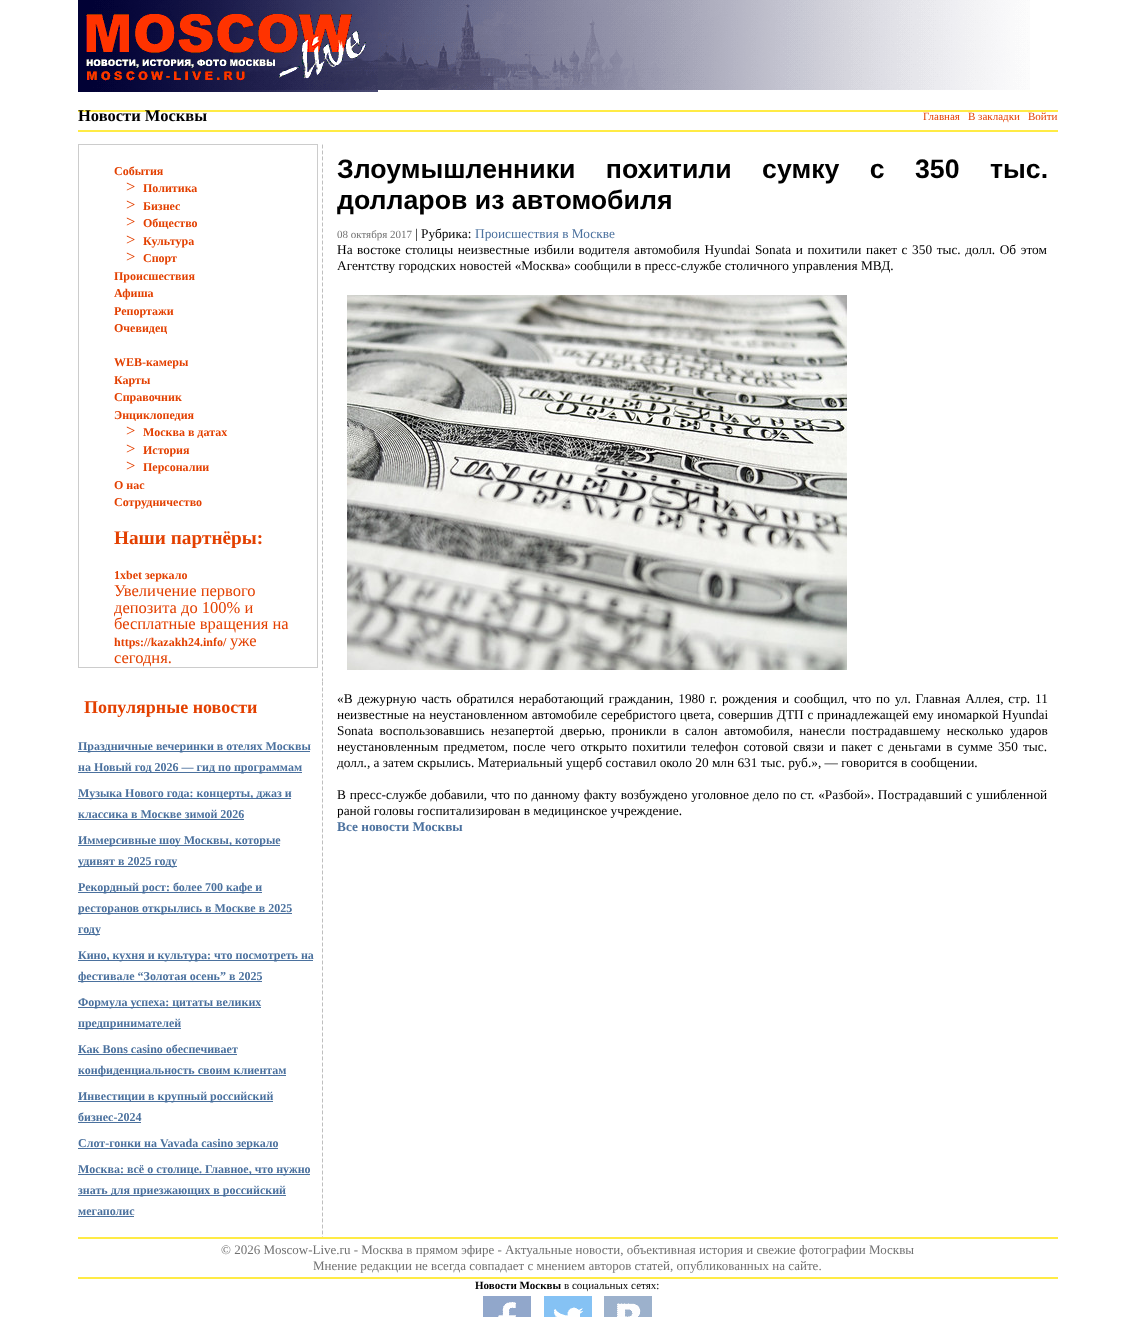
<svg xmlns="http://www.w3.org/2000/svg" width="1135" height="1317" viewBox="0 0 1135 1317">
  <style>
    .t1 { font: bold 16.5px Liberation Serif; fill: #000; }
    .t2 { font: 11px Liberation Serif; fill: #e34000; }
    .t3 { font: bold 12px Liberation Serif; fill: #e34000; }
    .t4 { font: 16.5px Liberation Serif; fill: #e34000; }
    .t5 { font: bold 19.25px Liberation Serif; fill: #e34000; }
    .t6 { font: bold 18px Liberation Serif; fill: #e34000; }
    .t7 { font: bold 12px Liberation Serif; fill: #4b719e; }
    .t8 { font: bold 26.7px Liberation Sans; fill: #000; }
    .t9 { font: 11px Liberation Serif; fill: #717171; }
    .t10 { font: 13.33px Liberation Serif; fill: #000; }
    .t11 { font: 13.33px Liberation Serif; fill: #4b719e; }
    .t12 { font: bold 13.33px Liberation Serif; fill: #4b719e; }
    .t13 { font: 13px Liberation Serif; fill: #717171; }
    .t14 { font: bold 11px Liberation Serif; fill: #000; }
    .t15 { font: 11px Liberation Serif; fill: #000; }
  </style>
  <rect width="100%" height="100%" fill="#fff"/>
  <image x="78" y="0" width="300" height="92" href="images/1.png"/>
  <image x="86" y="14" width="280" height="67" href="images/2.png"/>
  <image x="378" y="0" width="652" height="90" href="images/3.png"/>
  <image x="78" y="110" width="300" height="22" href="images/4.png"/>
  <text x="78" y="121" class="t1">Новости Москвы</text>
  <image x="378" y="110" width="680" height="22" href="images/5.png"/>
  <text x="923" y="120" class="t2">Главная</text>
  <text x="968" y="120" class="t2">В закладки</text>
  <text x="1028" y="120" class="t2">Войти</text>
  <rect x="78.5" y="144.5" width="239" height="523" fill="none" stroke="#ccc"/>
  <text x="114" y="175" class="t3">События</text>
  <text x="126" y="192" class="t4">&gt;</text>
  <text x="143" y="192" class="t3">Политика</text>
  <text x="126" y="210" class="t4">&gt;</text>
  <text x="143" y="210" class="t3">Бизнес</text>
  <text x="126" y="227" class="t4">&gt;</text>
  <text x="143" y="227" class="t3">Общество</text>
  <text x="126" y="245" class="t4">&gt;</text>
  <text x="143" y="245" class="t3">Культура</text>
  <text x="126" y="262" class="t4">&gt;</text>
  <text x="143" y="262" class="t3">Спорт</text>
  <text x="114" y="280" class="t3">Происшествия</text>
  <text x="114" y="297" class="t3">Афиша</text>
  <text x="114" y="315" class="t3">Репортажи</text>
  <text x="114" y="332" class="t3">Очевидец</text>
  <text x="114" y="366" class="t3">WEB-камеры</text>
  <text x="114" y="384" class="t3">Карты</text>
  <text x="114" y="401" class="t3">Справочник</text>
  <text x="114" y="419" class="t3">Энциклопедия</text>
  <text x="126" y="436" class="t4">&gt;</text>
  <text x="143" y="436" class="t3">Москва в датах</text>
  <text x="126" y="454" class="t4">&gt;</text>
  <text x="143" y="454" class="t3">История</text>
  <text x="126" y="471" class="t4">&gt;</text>
  <text x="143" y="471" class="t3">Персоналии</text>
  <text x="114" y="489" class="t3">О нас</text>
  <text x="114" y="506" class="t3">Сотрудничество</text>
  <text x="114" y="544" class="t5">Наши партнёры:</text>
  <text x="114" y="579" class="t3">1xbet зеркало</text>
  <text x="114" y="596" class="t4">Увеличение первого</text>
  <text x="114" y="613" class="t4">депозита до 100% и</text>
  <text x="114" y="629" class="t4">бесплатные вращения на</text>
  <text x="114" y="646" class="t3">https://kazakh24.info/</text>
  <text x="230" y="646" class="t4">уже</text>
  <text x="114" y="663" class="t4">сегодня.</text>
  <text x="84" y="713" class="t6">Популярные новости</text>
  <rect x="78" y="751" width="232" height="1" fill="#4b719e"/>
  <text x="78" y="750" class="t7">Праздничные вечеринки в отелях Москвы</text>
  <rect x="78" y="772" width="224" height="1" fill="#4b719e"/>
  <text x="78" y="771" class="t7">на Новый год 2026 — гид по программам</text>
  <rect x="78" y="798" width="213" height="1" fill="#4b719e"/>
  <text x="78" y="797" class="t7">Музыка Нового года: концерты, джаз и</text>
  <text x="78" y="818" class="t7">классика в Москве зимой 2026</text>
  <rect x="78" y="819" width="166" height="1" fill="#4b719e"/>
  <rect x="78" y="845" width="202" height="1" fill="#4b719e"/>
  <text x="78" y="844" class="t7">Иммерсивные шоу Москвы, которые</text>
  <rect x="78" y="866" width="99" height="1" fill="#4b719e"/>
  <text x="78" y="865" class="t7">удивят в 2025 году</text>
  <rect x="78" y="892" width="184" height="1" fill="#4b719e"/>
  <text x="78" y="891" class="t7">Рекордный рост: более 700 кафе и</text>
  <rect x="78" y="913" width="214" height="1" fill="#4b719e"/>
  <text x="78" y="912" class="t7">ресторанов открылись в Москве в 2025</text>
  <rect x="78" y="934" width="22" height="1" fill="#4b719e"/>
  <text x="78" y="933" class="t7">году</text>
  <rect x="78" y="960" width="235" height="1" fill="#4b719e"/>
  <text x="78" y="959" class="t7">Кино, кухня и культура: что посмотреть на</text>
  <rect x="78" y="981" width="184" height="1" fill="#4b719e"/>
  <text x="78" y="980" class="t7">фестивале “Золотая осень” в 2025</text>
  <rect x="78" y="1007" width="183" height="1" fill="#4b719e"/>
  <text x="78" y="1006" class="t7">Формула успеха: цитаты великих</text>
  <rect x="78" y="1028" width="103" height="1" fill="#4b719e"/>
  <text x="78" y="1027" class="t7">предпринимателей</text>
  <text x="78" y="1053" class="t7">Как Bons сasino обеспечивает</text>
  <rect x="78" y="1054" width="159" height="1" fill="#4b719e"/>
  <rect x="78" y="1075" width="208" height="1" fill="#4b719e"/>
  <text x="78" y="1074" class="t7">конфиденциальность своим клиентам</text>
  <rect x="78" y="1101" width="195" height="1" fill="#4b719e"/>
  <text x="78" y="1100" class="t7">Инвестиции в крупный российский</text>
  <text x="78" y="1121" class="t7">бизнес-2024</text>
  <rect x="78" y="1122" width="63" height="1" fill="#4b719e"/>
  <rect x="78" y="1148" width="200" height="1" fill="#4b719e"/>
  <text x="78" y="1147" class="t7">Слот-гонки на Vavada casino зеркало</text>
  <rect x="78" y="1174" width="232" height="1" fill="#4b719e"/>
  <text x="78" y="1173" class="t7">Москва: всё о столице. Главное, что нужно</text>
  <rect x="78" y="1195" width="208" height="1" fill="#4b719e"/>
  <text x="78" y="1194" class="t7">знать для приезжающих в российский</text>
  <text x="78" y="1215" class="t7">мегаполис</text>
  <rect x="78" y="1216" width="56" height="1" fill="#4b719e"/>
  <image x="322" y="144" width="1" height="1093" href="images/6.png"/>
  <image x="322" y="681" width="1" height="18" href="images/7.png"/>
  <text x="337" y="178" word-spacing="23" class="t8">Злоумышленники похитили сумку с 350 тыс.</text>
  <text x="337" y="209" class="t8">долларов из автомобиля</text>
  <text x="337" y="238" class="t9">08 октября 2017</text>
  <text x="415" y="238" class="t10">| Рубрика:</text>
  <text x="475" y="238" class="t11">Происшествия в Москве</text>
  <text x="337" y="254" word-spacing="1.25" class="t10">На востоке столицы неизвестные избили водителя автомобиля Hyundai Sonata и похитили пакет с 350 тыс. долл. Об этом</text>
  <text x="337" y="270" class="t10">Агентству городских новостей «Москва» сообщили в пресс-службе столичного управления МВД.</text>
  <image x="347" y="295" width="500" height="375" href="images/8.png"/>
  <text x="337" y="703" word-spacing="1.5" class="t10">«В дежурную часть обратился неработающий гражданин, 1980 г. рождения и сообщил, что по ул. Главная Аллея, стр. 11</text>
  <text x="337" y="719" word-spacing="0.4" class="t10">неизвестные на неустановленном автомобиле серебристого цвета, совершив ДТП с принадлежащей ему иномаркой Hyundai</text>
  <text x="337" y="735" word-spacing="2.9" class="t10">Sonata воспользовавшись незапертой дверью, проникли в салон автомобиля, нанесли пострадавшему несколько ударов</text>
  <text x="337" y="751" word-spacing="1.8" class="t10">неустановленным предметом, после чего открыто похитили телефон сотовой связи и пакет с деньгами в сумме 350 тыс.</text>
  <text x="337" y="767" class="t10">долл., а затем скрылись. Материальный ущерб составил около 20 млн 631 тыс. руб.», — говорится в сообщении.</text>
  <text x="337" y="799" word-spacing="0.5" class="t10">В пресс-службе добавили, что по данному факту возбуждено уголовное дело по ст. «Разбой». Пострадавший с ушибленной</text>
  <text x="337" y="815" class="t10">раной головы госпитализирован в медицинское учреждение.</text>
  <text x="337" y="831" class="t12">Все новости Москвы</text>
  <image x="78" y="1237" width="980" height="42" href="images/9.png"/>
  <text x="221" y="1254" class="t13">© 2026 Moscow-Live.ru - Москва в прямом эфире - Актуальные новости, объективная история и свежие фотографии Москвы</text>
  <text x="313" y="1270" class="t13">Мнение редакции не всегда совпадает с мнением авторов статей, опубликованных на сайте.</text>
  <text x="475" y="1289" class="t14">Новости Москвы</text>
  <text x="564" y="1289" class="t15">в социальных сетях:</text>
  <image x="483" y="1296" width="48" height="21" href="images/10.png"/>
  <image x="544" y="1296" width="48" height="21" href="images/11.png"/>
  <image x="604" y="1296" width="48" height="21" href="images/12.png"/>
</svg>
